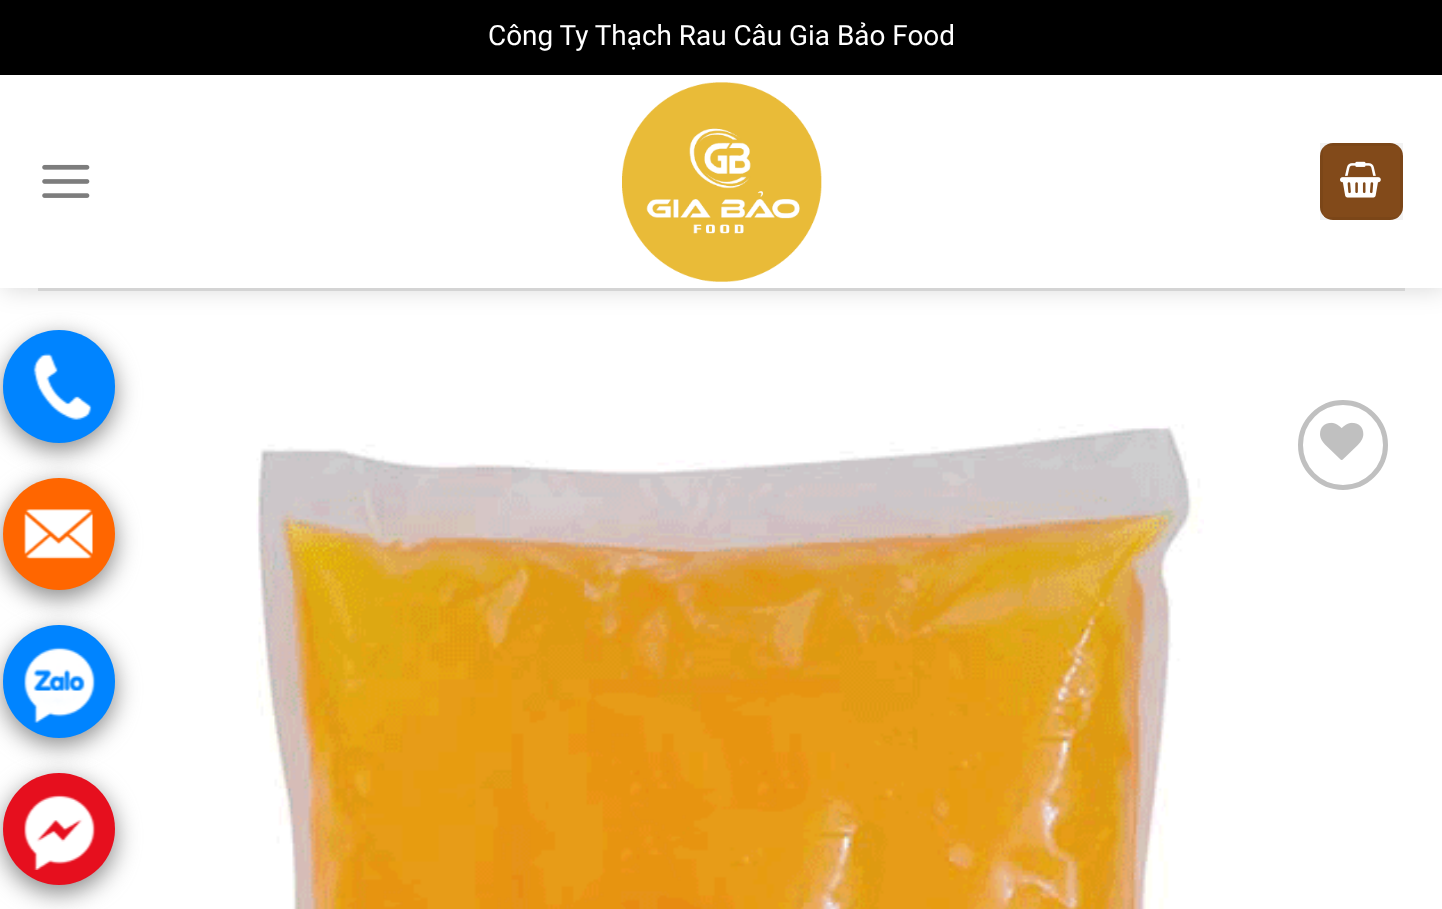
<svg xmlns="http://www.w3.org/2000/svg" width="1442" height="909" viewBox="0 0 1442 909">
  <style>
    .t1 { font: 27.9px Roboto; fill: #fff; }
  </style>
  <defs>
    <clipPath id="clip1"><path d="M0 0H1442V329H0ZM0 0H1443V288H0Z" clip-rule="evenodd"/></clipPath>
  </defs>
  <rect width="100%" height="100%" fill="#fff"/>
  <g clip-path="url(#clip1)">
    <rect x="3" y="3" width="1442" height="287" fill="#00000026" filter="blur(12.5px)"/>
  </g>
  <rect x="0" y="0" width="1442" height="75" fill="#000"/>
  <text x="488" y="45" class="t1">Công Ty Thạch Rau Câu Gia Bảo Food</text>
  <image x="42" y="164" width="48" height="34" href="images/1.png"/>
  <image x="622" y="82" width="200" height="200" href="images/2.png"/>
  <rect x="1320" y="143" width="83" height="77" rx="13" fill="#824a1a"/>
  <rect x="1321.5" y="144.5" width="80" height="74" fill="none" stroke="#0000000d" stroke-width="3"/>
  <image x="1340" y="161" width="41" height="37" href="images/3.png"/>
  <rect x="38" y="288" width="1367" height="3" fill="#d4d4d4"/>
  <rect x="0" y="287" width="1442" height="1" fill="#ffffffe6"/>
  <image x="256" y="424" width="948" height="485" href="images/4.png"/>
  <circle cx="1343" cy="445" r="42.5" fill="none" stroke="#c0c0c0" stroke-width="5"/>
  <image x="1320" y="422" width="44" height="38" href="images/5.png"/>
  <rect x="3" y="338" width="112" height="112" rx="56" fill="#888" filter="blur(12.5px)"/>
  <rect x="3" y="330" width="112" height="113" rx="56" fill="#0084ff"/>
  <image x="33" y="353" width="59" height="67" href="images/6.png"/>
  <rect x="3" y="485" width="112" height="113" rx="56" fill="#888" filter="blur(12.5px)"/>
  <circle cx="59" cy="534" r="56" fill="#f60"/>
  <image x="24" y="509" width="69" height="50" href="images/7.png"/>
  <rect x="3" y="633" width="112" height="112" rx="56" fill="#888" filter="blur(12.5px)"/>
  <rect x="3" y="625" width="112" height="113" rx="56" fill="#0084ff"/>
  <image x="24" y="647" width="72" height="76" href="images/8.png"/>
  <rect x="3" y="780" width="112" height="113" rx="56" fill="#888" filter="blur(12.5px)"/>
  <circle cx="59" cy="829" r="56" fill="#e60f1e"/>
  <image x="24" y="794" width="72" height="76" href="images/9.png"/>
</svg>
